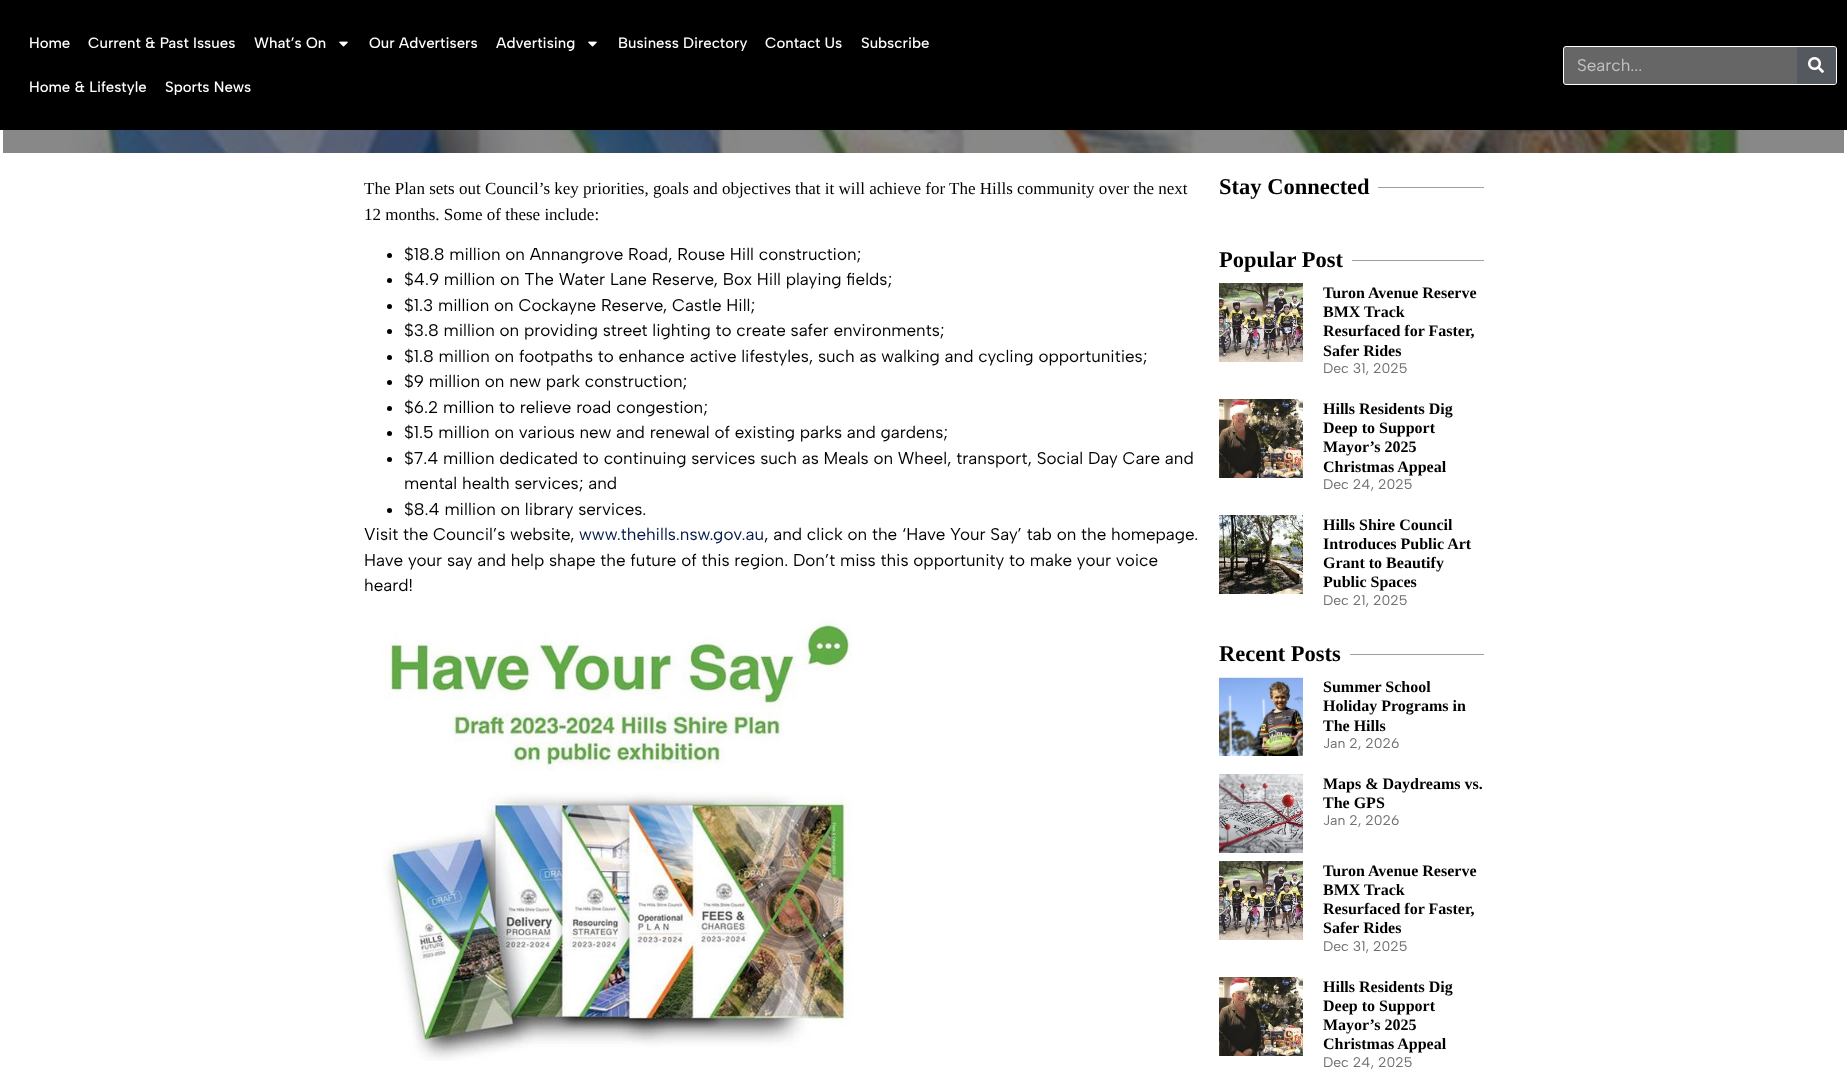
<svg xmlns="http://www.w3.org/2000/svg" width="1847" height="1071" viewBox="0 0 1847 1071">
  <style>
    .t1 { font: 500 15px Albert Sans; fill: #fff; }
    .t2 { font: 17px Albert Sans; fill: #c2c2c2; }
    .t3 { font: 17px Liberation Serif; fill: #000; }
    .t4 { font: 17px Albert Sans; fill: #000; }
    .t5 { font: 17px Albert Sans; fill: #001747; }
    .t6 { font: bold 22.5px Liberation Serif; fill: #000; }
    .t7 { font: bold 16px Liberation Serif; fill: #000; }
    .t8 { font: 14px Albert Sans; fill: #707070; }
  </style>
  <rect width="100%" height="100%" fill="#fff"/>
  <rect x="3" y="130" width="1841" height="23" fill="#888"/>
  <rect x="0" y="0" width="1847" height="130" fill="#000"/>
  <text x="29" y="48" class="t1">Home</text>
  <text x="88" y="48" class="t1">Current &amp; Past Issues</text>
  <text x="254" y="48" class="t1">What’s On</text>
  <image x="339" y="41" width="9" height="6" href="images/1.png"/>
  <text x="369" y="48" class="t1">Our Advertisers</text>
  <text x="496" y="48" class="t1">Advertising</text>
  <image x="588" y="41" width="9" height="6" href="images/1.png"/>
  <text x="618" y="48" class="t1">Business Directory</text>
  <text x="765" y="48" class="t1">Contact Us</text>
  <text x="861" y="48" class="t1">Subscribe</text>
  <text x="29" y="92" class="t1">Home &amp; Lifestyle</text>
  <text x="165" y="92" class="t1">Sports News</text>
  <rect x="1563.5" y="46.5" width="273" height="38" rx="2.5" fill="#666" stroke="#fff"/>
  <text x="1577" y="71" class="t2">Search...</text>
  <path d="M1797 47H1834C1835 47 1836 48 1836 49V82C1836 83 1835 84 1834 84H1797Z" fill="#54595f"/>
  <image x="1808" y="57" width="16" height="16" href="images/2.png"/>
  <image x="68" y="130" width="1681" height="23" href="images/3.png"/>
  <text x="364" y="194" class="t3">The Plan sets out Council’s key priorities, goals and objectives that it will achieve for The Hills community over the next</text>
  <text x="364" y="220" class="t3">12 months. Some of these include:</text>
  <circle cx="389.5" cy="255.5" r="2.5" fill="#000"/>
  <text x="404" y="260" class="t4">$18.8 million on Annangrove Road, Rouse Hill construction;</text>
  <circle cx="389.5" cy="280.5" r="2.5" fill="#000"/>
  <text x="404" y="285" class="t4">$4.9 million on The Water Lane Reserve, Box Hill playing fields;</text>
  <circle cx="389.5" cy="306.5" r="2.5" fill="#000"/>
  <text x="404" y="311" class="t4">$1.3 million on Cockayne Reserve, Castle Hill;</text>
  <circle cx="389.5" cy="331.5" r="2.5" fill="#000"/>
  <text x="404" y="336" class="t4">$3.8 million on providing street lighting to create safer environments;</text>
  <circle cx="389.5" cy="357.5" r="2.5" fill="#000"/>
  <text x="404" y="362" class="t4">$1.8 million on footpaths to enhance active lifestyles, such as walking and cycling opportunities;</text>
  <circle cx="389.5" cy="382.5" r="2.5" fill="#000"/>
  <text x="404" y="387" class="t4">$9 million on new park construction;</text>
  <circle cx="389.5" cy="408.5" r="2.5" fill="#000"/>
  <text x="404" y="413" class="t4">$6.2 million to relieve road congestion;</text>
  <circle cx="389.5" cy="433.5" r="2.5" fill="#000"/>
  <text x="404" y="438" class="t4">$1.5 million on various new and renewal of existing parks and gardens;</text>
  <circle cx="389.5" cy="459.5" r="2.5" fill="#000"/>
  <text x="404" y="464" class="t4">$7.4 million dedicated to continuing services such as Meals on Wheel, transport, Social Day Care and</text>
  <text x="404" y="489" class="t4">mental health services; and</text>
  <circle cx="389.5" cy="510.5" r="2.5" fill="#000"/>
  <text x="404" y="515" class="t4">$8.4 million on library services.</text>
  <text x="364" y="540" class="t4">Visit the Council’s website,</text>
  <text x="579" y="540" class="t5">www.thehills.nsw.gov.au</text>
  <text x="764" y="540" class="t4">, and click on the ‘Have Your Say’ tab on the homepage.</text>
  <text x="364" y="566" class="t4">Have your say and help shape the future of this region. Don’t miss this opportunity to make your voice</text>
  <text x="364" y="591" class="t4">heard!</text>
  <image x="382" y="617" width="470" height="444" href="images/4.png"/>
  <text x="1219" y="194" class="t6">Stay Connected</text>
  <rect x="1378" y="187" width="106" height="1" fill="#9f9f9f"/>
  <text x="1219" y="267" class="t6">Popular Post</text>
  <rect x="1352" y="260" width="132" height="1" fill="#9f9f9f"/>
  <image x="1219" y="283" width="84" height="79" href="images/5.png"/>
  <text x="1323" y="298" class="t7">Turon Avenue Reserve</text>
  <text x="1323" y="317" class="t7">BMX Track</text>
  <text x="1323" y="336" class="t7">Resurfaced for Faster,</text>
  <text x="1323" y="356" class="t7">Safer Rides</text>
  <text x="1323" y="373" class="t8">Dec 31, 2025</text>
  <image x="1219" y="399" width="84" height="79" href="images/6.png"/>
  <text x="1323" y="414" class="t7">Hills Residents Dig</text>
  <text x="1323" y="433" class="t7">Deep to Support</text>
  <text x="1323" y="452" class="t7">Mayor’s 2025</text>
  <text x="1323" y="472" class="t7">Christmas Appeal</text>
  <text x="1323" y="489" class="t8">Dec 24, 2025</text>
  <image x="1219" y="515" width="84" height="79" href="images/7.png"/>
  <text x="1323" y="530" class="t7">Hills Shire Council</text>
  <text x="1323" y="549" class="t7">Introduces Public Art</text>
  <text x="1323" y="568" class="t7">Grant to Beautify</text>
  <text x="1323" y="587" class="t7">Public Spaces</text>
  <text x="1323" y="605" class="t8">Dec 21, 2025</text>
  <text x="1219" y="661" class="t6">Recent Posts</text>
  <rect x="1350" y="654" width="134" height="1" fill="#9f9f9f"/>
  <image x="1219" y="677" width="84" height="79" href="images/8.png"/>
  <text x="1323" y="692" class="t7">Summer School</text>
  <text x="1323" y="711" class="t7">Holiday Programs in</text>
  <text x="1323" y="731" class="t7">The Hills</text>
  <text x="1323" y="748" class="t8">Jan 2, 2026</text>
  <image x="1219" y="774" width="84" height="79" href="images/9.png"/>
  <text x="1323" y="789" class="t7">Maps &amp; Daydreams vs.</text>
  <text x="1323" y="808" class="t7">The GPS</text>
  <text x="1323" y="825" class="t8">Jan 2, 2026</text>
  <image x="1219" y="861" width="84" height="79" href="images/5.png"/>
  <text x="1323" y="876" class="t7">Turon Avenue Reserve</text>
  <text x="1323" y="895" class="t7">BMX Track</text>
  <text x="1323" y="914" class="t7">Resurfaced for Faster,</text>
  <text x="1323" y="933" class="t7">Safer Rides</text>
  <text x="1323" y="951" class="t8">Dec 31, 2025</text>
  <image x="1219" y="977" width="84" height="79" href="images/6.png"/>
  <text x="1323" y="992" class="t7">Hills Residents Dig</text>
  <text x="1323" y="1011" class="t7">Deep to Support</text>
  <text x="1323" y="1030" class="t7">Mayor’s 2025</text>
  <text x="1323" y="1049" class="t7">Christmas Appeal</text>
  <text x="1323" y="1067" class="t8">Dec 24, 2025</text>
</svg>
